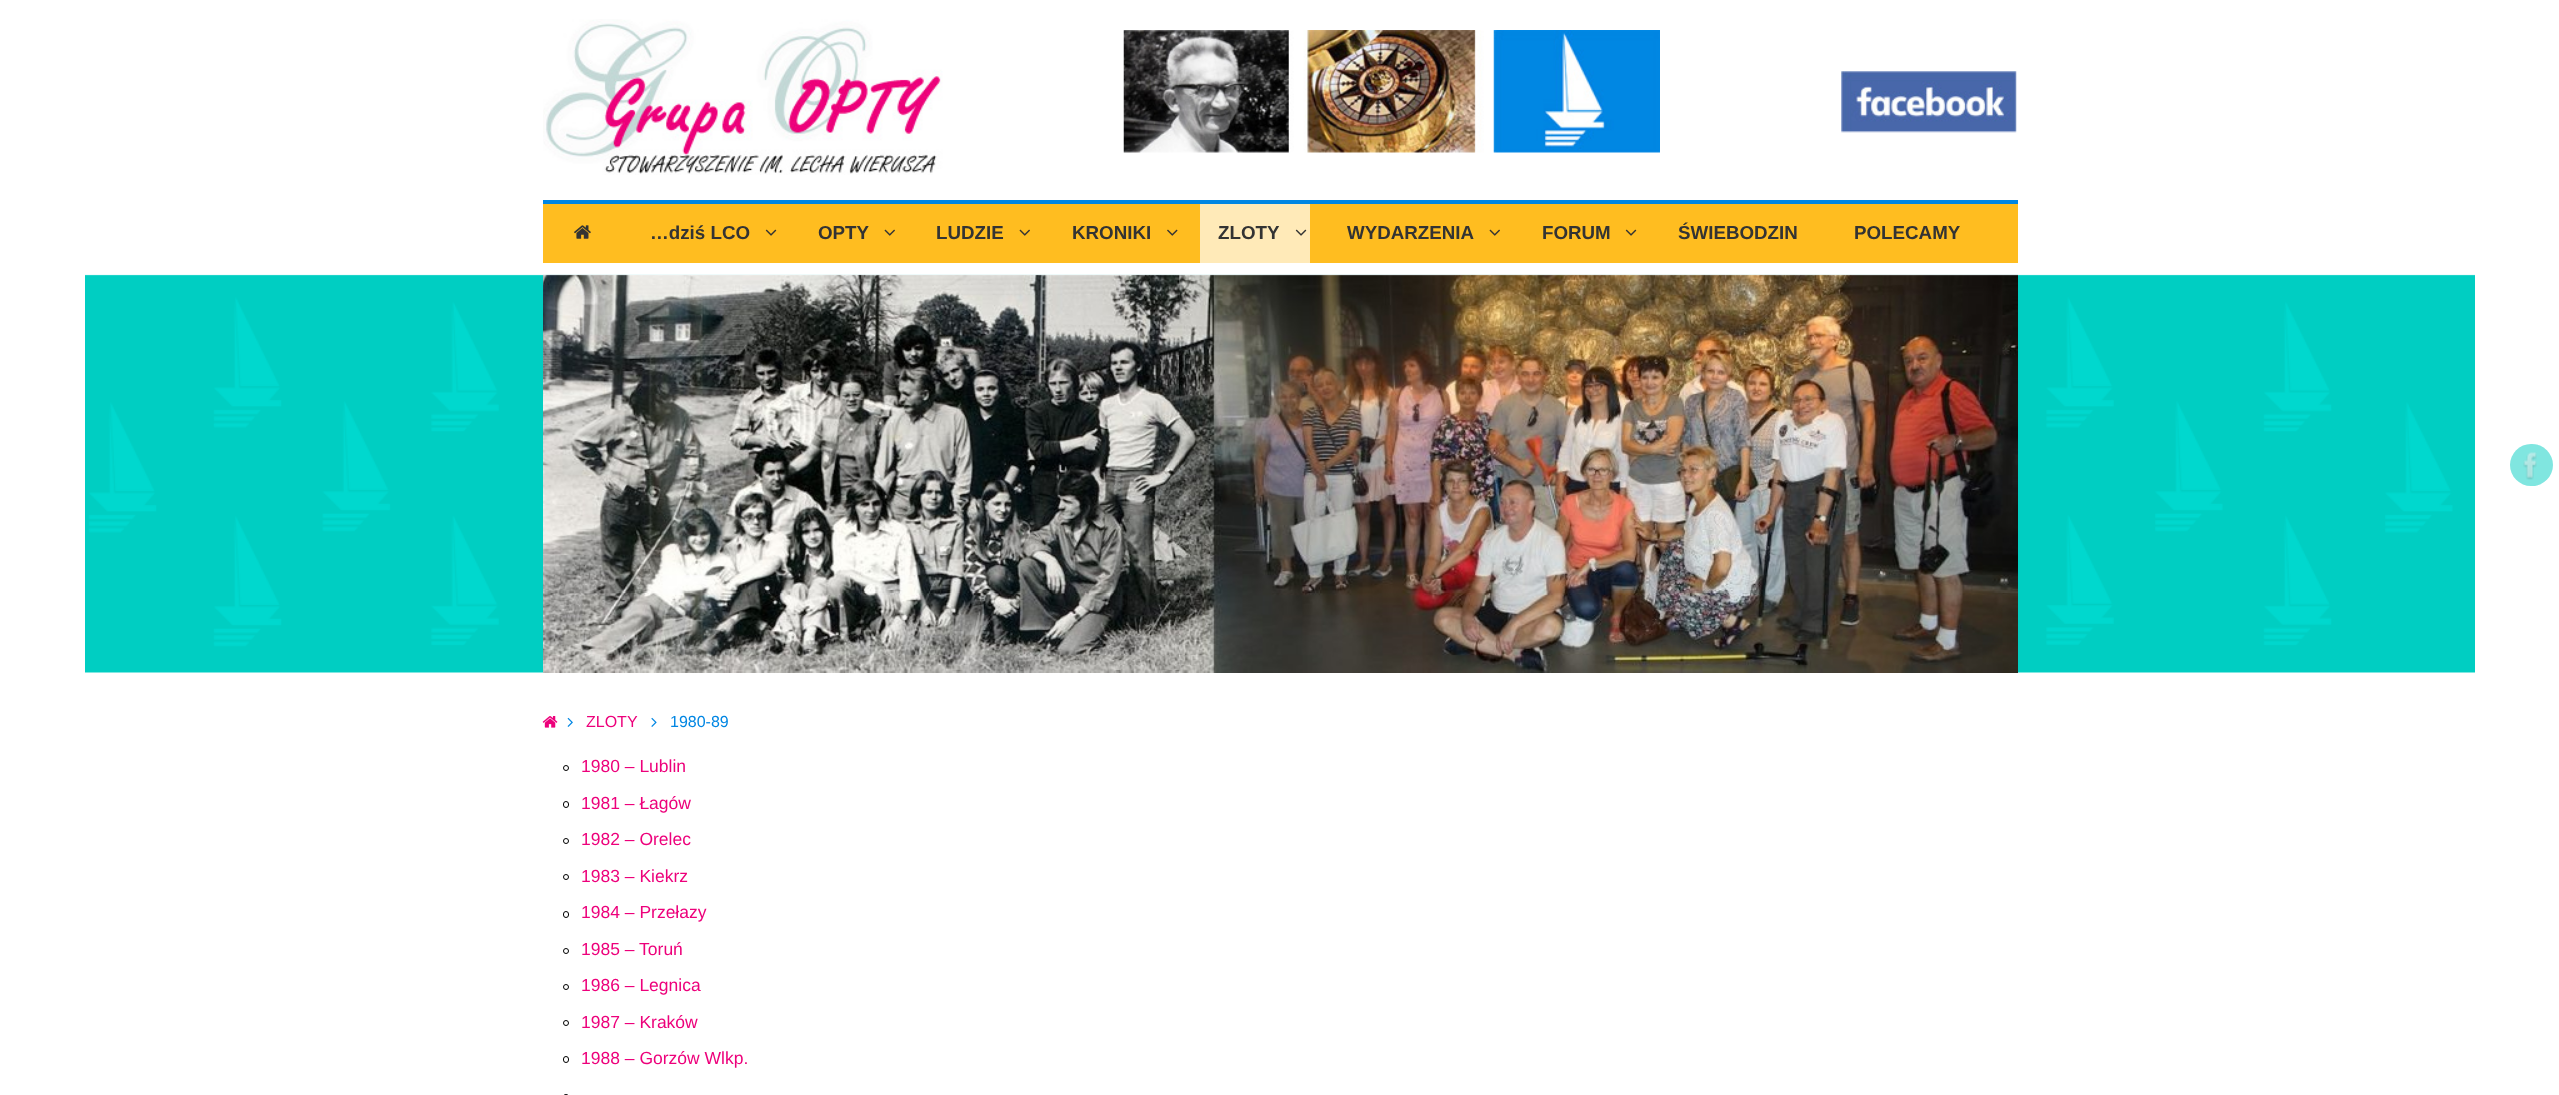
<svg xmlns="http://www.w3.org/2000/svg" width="2559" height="1095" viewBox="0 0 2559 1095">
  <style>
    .t1 { font: bold 18.75px Liberation Sans; fill: #333; }
    .t2 { font: 16px Liberation Sans; fill: #ed007b; }
    .t3 { font: 16px Liberation Sans; fill: #0086e3; }
    .t4 { font: 17.5px Liberation Sans; fill: #ed007b; }
  </style>
  <rect width="100%" height="100%" fill="#fff"/>
  <image x="85" y="274" width="2390" height="399" href="images/1.png"/>
  <image x="543" y="19" width="400" height="156" href="images/2.png"/>
  <image x="1123" y="30" width="537" height="123" href="images/3.png"/>
  <image x="1841" y="71" width="176" height="62" href="images/4.png"/>
  <rect x="543" y="204" width="1475" height="59" fill="#ffbd20"/>
  <rect x="543" y="200" width="1475" height="4" fill="#0086e3"/>
  <image x="574" y="225" width="17" height="14" href="images/5.png"/>
  <text x="650" y="239" class="t1">…dziś LCO</text>
  <image x="765" y="229" width="12" height="7" href="images/6.png"/>
  <text x="818" y="239" class="t1">OPTY</text>
  <image x="884" y="229" width="11" height="7" href="images/7.png"/>
  <text x="936" y="239" class="t1">LUDZIE</text>
  <image x="1019" y="229" width="11" height="7" href="images/7.png"/>
  <text x="1072" y="239" class="t1">KRONIKI</text>
  <image x="1167" y="229" width="11" height="7" href="images/8.png"/>
  <rect x="1200" y="204" width="110" height="59" fill="#ffeab8"/>
  <text x="1218" y="239" class="t1">ZLOTY</text>
  <image x="1295" y="229" width="12" height="7" href="images/9.png"/>
  <text x="1347" y="239" class="t1">WYDARZENIA</text>
  <image x="1489" y="229" width="11" height="7" href="images/7.png"/>
  <text x="1542" y="239" class="t1">FORUM</text>
  <image x="1625" y="229" width="12" height="7" href="images/6.png"/>
  <text x="1678" y="239" class="t1">ŚWIEBODZIN</text>
  <text x="1854" y="239" class="t1">POLECAMY</text>
  <rect x="2510" y="444" width="43" height="42" rx="21" fill="#80e6e0"/>
  <image x="2523" y="452" width="14" height="28" href="images/10.png"/>
  <rect x="543" y="275" width="1475" height="398" fill="#fff"/>
  <image x="543" y="274" width="1475" height="399" href="images/11.png"/>
  <image x="542" y="716" width="16" height="12" href="images/12.png"/>
  <image x="567" y="717" width="6" height="10" href="images/13.png"/>
  <text x="586" y="727" class="t2">ZLOTY</text>
  <image x="651" y="717" width="6" height="10" href="images/14.png"/>
  <text x="670" y="727" class="t3">1980-89</text>
  <circle cx="566" cy="768" r="2.5" fill="none" stroke="#000"/>
  <text x="581" y="772" class="t4">1980 – Lublin</text>
  <rect x="563.5" y="801.5" width="5" height="6" rx="2.5" fill="none" stroke="#000"/>
  <text x="581" y="809" class="t4">1981 – Łagów</text>
  <circle cx="566" cy="841" r="2.5" fill="none" stroke="#000"/>
  <text x="581" y="845" class="t4">1982 – Orelec</text>
  <circle cx="566" cy="877" r="2.5" fill="none" stroke="#000"/>
  <text x="581" y="882" class="t4">1983 – Kiekrz</text>
  <rect x="563.5" y="911.5" width="5" height="6" rx="2.5" fill="none" stroke="#000"/>
  <text x="581" y="918" class="t4">1984 – Przełazy</text>
  <circle cx="566" cy="951" r="2.5" fill="none" stroke="#000"/>
  <text x="581" y="955" class="t4">1985 – Toruń</text>
  <circle cx="566" cy="987" r="2.5" fill="none" stroke="#000"/>
  <text x="581" y="991" class="t4">1986 – Legnica</text>
  <circle cx="566" cy="1023" r="2.5" fill="none" stroke="#000"/>
  <text x="581" y="1028" class="t4">1987 – Kraków</text>
  <rect x="563.5" y="1056.5" width="5" height="6" rx="2.5" fill="none" stroke="#000"/>
  <text x="581" y="1064" class="t4">1988 – Gorzów Wlkp.</text>
  <rect x="563.5" y="1094.5" width="5" height="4" rx="2.5" fill="none" stroke="#000"/>
</svg>
